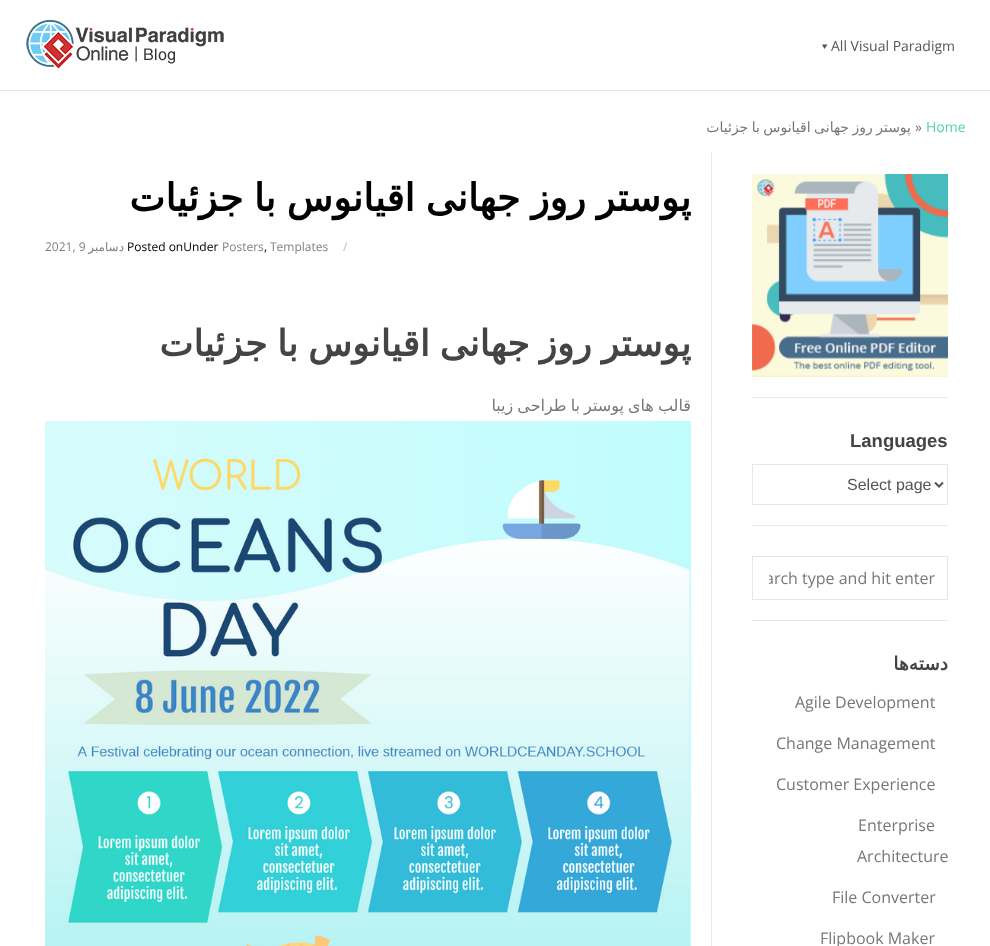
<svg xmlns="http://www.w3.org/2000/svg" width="990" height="946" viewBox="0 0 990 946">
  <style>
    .t1 { font: 14px Open Sans; fill: #555; }
    .t2 { font: 14px Open Sans; fill: #777; }
    .t3 { font: 14px DejaVu Sans; direction: rtl; fill: #777; }
    .t4 { font: 14px Open Sans; fill: #54d5a2; }
    .t5 { font: bold 38px DejaVu Sans; direction: rtl; fill: #000; }
    .t6 { font: 12px Open Sans; fill: #808080; }
    .t7 { font: 12px DejaVu Sans; direction: rtl; fill: #808080; }
    .t8 { font: 12px Open Sans; fill: #000; }
    .t9 { font: 12px Open Sans; fill: #bbb; }
    .t10 { font: bold 36px DejaVu Sans; direction: rtl; fill: #444; }
    .t11 { font: 16px DejaVu Sans; direction: rtl; fill: #777; }
    .t12 { font: bold 18.5px Liberation Sans; fill: #444; }
    .t13 { font: 16px Liberation Sans; fill: #555; }
    .t14 { font: 16px Open Sans; fill: #777; }
    .t15 { font: bold 18.5px DejaVu Sans; direction: rtl; fill: #444; }
  </style>
  <defs>
    <clipPath id="clip1"><rect x="769" y="567" width="166" height="22"/></clipPath>
  </defs>
  <rect width="100%" height="100%" fill="#fff"/>
  <rect x="0" y="90" width="990" height="1" fill="#e4e4e4"/>
  <image x="26" y="20" width="198" height="49" href="images/1.png"/>
  <path d="M827.5 44.5L824.5 49L822 44.5Z" fill="#555"/>
  <text x="831" y="51" class="t1">All Visual Paradigm</text>
  <text x="915" y="132" class="t2">»</text>
  <text x="911" y="132" word-spacing="-1" class="t3">پوستر روز جهانی اقیانوس با جزئیات</text>
  <text x="926" y="132" class="t4">Home</text>
  <rect x="711" y="152" width="1" height="794" fill="#e6e6e6"/>
  <text x="691" y="211" word-spacing="-1.5" class="t5">پوستر روز جهانی اقیانوس با جزئیات</text>
  <text x="45" y="251" class="t6">2021, 9</text>
  <text x="124" y="251" class="t7">دسامبر</text>
  <text x="127" y="251" class="t8">Posted onUnder</text>
  <text x="222" y="251" class="t6">Posters</text>
  <text x="264" y="251" class="t8">,</text>
  <text x="270" y="251" class="t6">Templates</text>
  <text x="343" y="251" class="t9">/</text>
  <text x="691" y="356" word-spacing="-1.5" class="t10">پوستر روز جهانی اقیانوس با جزئیات</text>
  <text x="691" y="411" word-spacing="-1" class="t11">قالب های پوستر با طراحی زیبا</text>
  <image x="45" y="421" width="646" height="525" href="images/2.png"/>
  <rect x="752" y="397" width="196" height="1" fill="#e7e8e9"/>
  <image x="752" y="174" width="196" height="203" href="images/3.png"/>
  <rect x="752" y="525" width="196" height="1" fill="#e7e8e9"/>
  <text x="850" y="447" class="t12">Languages</text>
  <rect x="752.5" y="464.5" width="195" height="40" fill="none" stroke="#e6e6e6"/>
  <path d="M935 482.5L939 486.5L943 482.5" fill="none" stroke="#555" stroke-width="2"/>
  <text x="847" y="490" class="t13">Select page</text>
  <rect x="752" y="620" width="196" height="1" fill="#e7e8e9"/>
  <rect x="752.5" y="556.5" width="195" height="43" fill="none" stroke="#e6e6e6"/>
  <g clip-path="url(#clip1)">
    <text x="765" y="584" class="t14">arch type and hit enter</text>
  </g>
  <text x="948" y="670" class="t15">دسته‌ها</text>
  <text x="795" y="708" class="t14">Agile Development</text>
  <text x="776" y="749" class="t14">Change Management</text>
  <text x="776" y="790" class="t14">Customer Experience</text>
  <text x="858" y="831" class="t14">Enterprise</text>
  <text x="857" y="862" class="t14">Architecture</text>
  <text x="832" y="903" class="t14">File Converter</text>
  <text x="820" y="944" class="t14">Flipbook Maker</text>
</svg>
